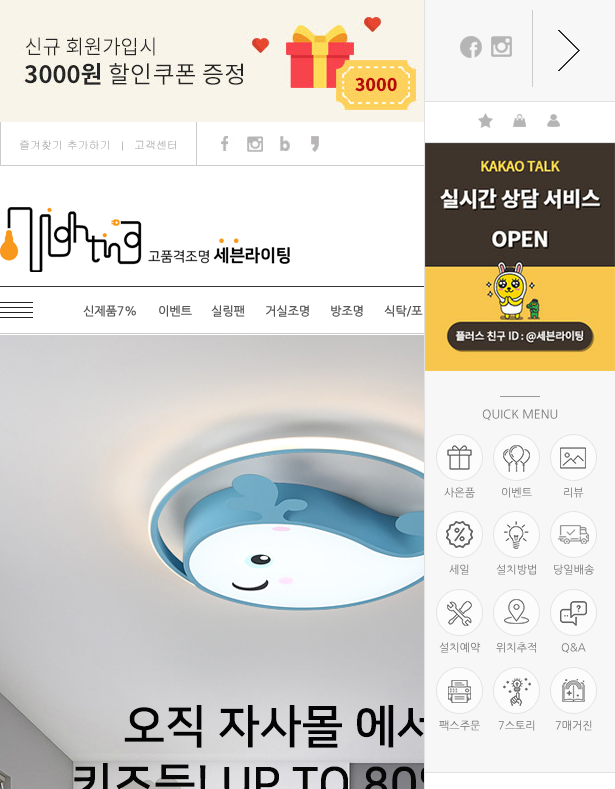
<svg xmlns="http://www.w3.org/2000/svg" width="615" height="789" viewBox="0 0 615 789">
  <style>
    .t1 { font: 11px Gulim; fill: #a4a4a4; }
    .t2 { font: bold 12px NanumGothic; fill: #555; }
    .t3 { font: 12px NanumGothic; fill: #777; }
    .t4 { font: 11px NanumGothic; fill: #777; }
  </style>
  <rect width="100%" height="100%" fill="#fff"/>
  <image x="0" y="0" width="15" height="122" href="images/1.png"/>
  <image x="15" y="0" width="409" height="122" href="images/2.png"/>
  <rect x="0" y="165" width="424" height="1" fill="#ccc"/>
  <rect x="196" y="122" width="1" height="43" fill="#ccc"/>
  <rect x="0" y="122" width="1" height="43" fill="#ccc"/>
  <text x="19" y="149" class="t1">즐겨찾기 추가하기</text>
  <text x="117" y="150" class="t1">ㅣ</text>
  <text x="134" y="149" class="t1">고객센터</text>
  <image x="221" y="136" width="12" height="15" href="images/3.png"/>
  <image x="247" y="136" width="16" height="16" href="images/4.png"/>
  <image x="279" y="136" width="14" height="15" href="images/5.png"/>
  <image x="308" y="136" width="11" height="16" href="images/6.png"/>
  <image x="0" y="207" width="290" height="65" href="images/7.png"/>
  <rect x="0" y="286" width="424" height="1" fill="#333"/>
  <rect x="0" y="333" width="424" height="1" fill="#ccc"/>
  <image x="0" y="302" width="33" height="16" href="images/8.png"/>
  <text x="83" y="315" class="t2">신제품7%</text>
  <text x="158" y="315" class="t2">이벤트</text>
  <text x="211" y="315" class="t2">실링팬</text>
  <text x="265" y="315" class="t2">거실조명</text>
  <text x="330" y="315" class="t2">방조명</text>
  <text x="384" y="315" class="t2">식탁/포</text>
  <image x="0" y="335" width="424" height="454" href="images/9.png"/>
  <rect x="424" y="0" width="1" height="789" fill="#e1e1e1"/>
  <rect x="425" y="0" width="190" height="101" fill="#f7f7f7"/>
  <image x="460" y="36" width="22" height="22" href="images/10.png"/>
  <image x="491" y="36" width="21" height="21" href="images/11.png"/>
  <rect x="532" y="10" width="1" height="77" fill="#ccc"/>
  <image x="558" y="30" width="22" height="41" href="images/12.png"/>
  <rect x="425" y="101" width="190" height="1" fill="#e1e1e1"/>
  <rect x="425" y="142" width="190" height="1" fill="#e1e1e1"/>
  <image x="478" y="113" width="15" height="15" href="images/13.png"/>
  <image x="513" y="114" width="13" height="13" href="images/14.png"/>
  <image x="547" y="114" width="13" height="13" href="images/15.png"/>
  <image x="425" y="143" width="190" height="228" href="images/16.png"/>
  <rect x="425" y="371" width="190" height="401" fill="#f7f7f7"/>
  <rect x="425" y="772" width="190" height="1" fill="#e1e1e1"/>
  <rect x="500" y="396" width="40" height="1" fill="#999"/>
  <text x="482" y="418" class="t3">QUICK MENU</text>
  <image x="436" y="434" width="47" height="47" href="images/17.png"/>
  <text x="444" y="496" class="t4">사은품</text>
  <image x="493" y="434" width="47" height="47" href="images/18.png"/>
  <text x="501" y="496" class="t4">이벤트</text>
  <image x="550" y="434" width="47" height="47" href="images/19.png"/>
  <text x="563" y="496" class="t4">리뷰</text>
  <image x="436" y="511" width="47" height="47" href="images/20.png"/>
  <text x="449" y="573" class="t4">세일</text>
  <image x="493" y="511" width="47" height="47" href="images/21.png"/>
  <text x="496" y="573" class="t4">설치방법</text>
  <image x="550" y="511" width="47" height="47" href="images/22.png"/>
  <text x="553" y="573" class="t4">당일배송</text>
  <image x="436" y="589" width="47" height="47" href="images/23.png"/>
  <text x="439" y="651" class="t4">설치예약</text>
  <image x="493" y="589" width="47" height="47" href="images/24.png"/>
  <text x="496" y="651" class="t4">위치추적</text>
  <image x="550" y="589" width="47" height="47" href="images/25.png"/>
  <text x="561" y="651" class="t4">Q&amp;A</text>
  <image x="436" y="667" width="47" height="47" href="images/26.png"/>
  <text x="439" y="729" class="t4">팩스주문</text>
  <image x="493" y="667" width="47" height="47" href="images/27.png"/>
  <text x="498" y="729" class="t4">7스토리</text>
  <image x="550" y="667" width="47" height="47" href="images/28.png"/>
  <text x="555" y="729" class="t4">7매거진</text>
</svg>
